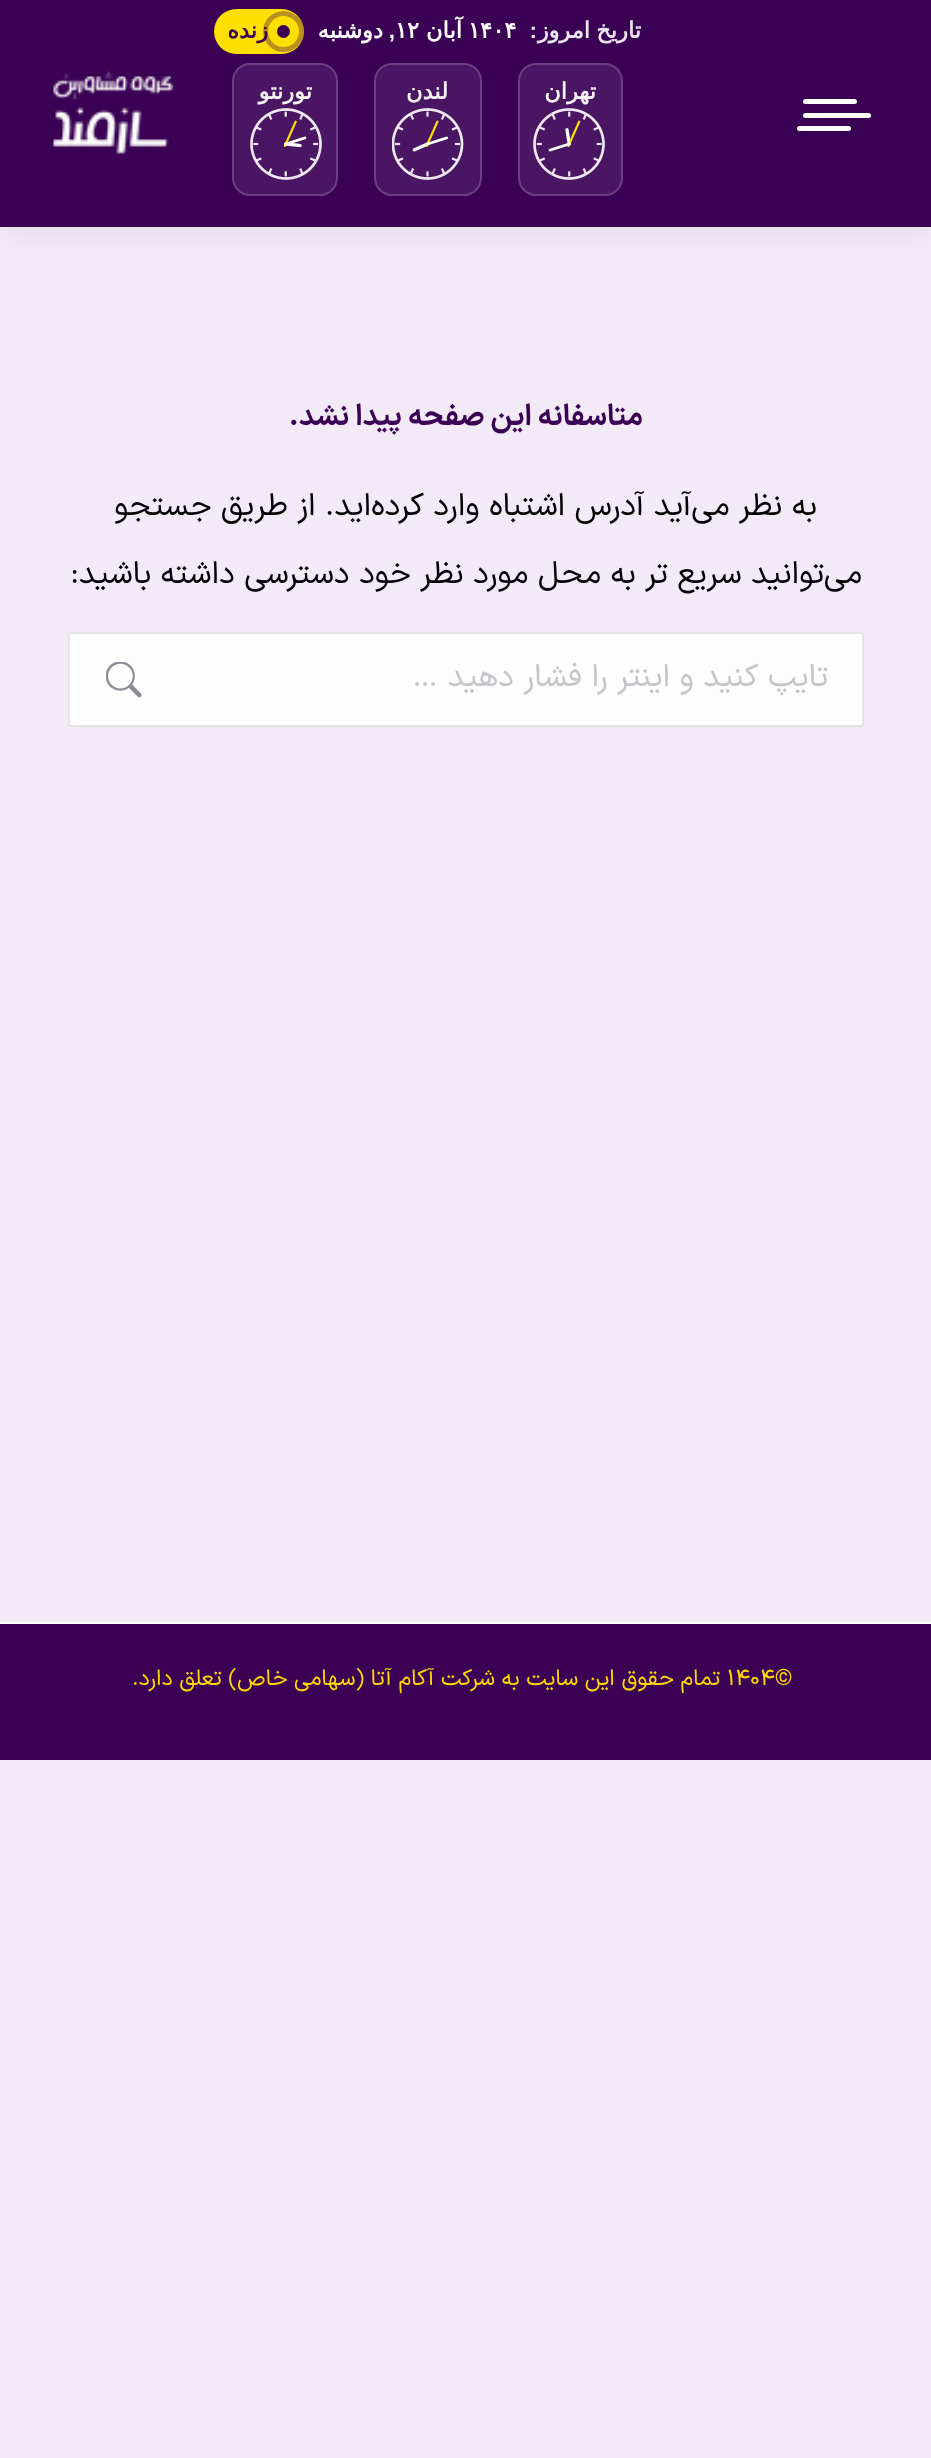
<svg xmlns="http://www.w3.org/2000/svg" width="931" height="2458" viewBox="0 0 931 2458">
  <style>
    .t1 { font: bold 22.5px DejaVu Sans; direction: rtl; fill: #ebe6ee; }
    .t2 { font: bold 22.5px Liberation Sans; direction: rtl; fill: #ebe6ee; }
    .t3 { font: bold 22.5px DejaVu Sans; fill: #fff; }
    .t4 { font: bold 22.5px DejaVu Sans; direction: rtl; fill: #fff; }
    .t5 { font: bold 22.5px Liberation Sans; direction: rtl; fill: #fff; }
    .t6 { font: bold 22.5px DejaVu Sans; direction: rtl; fill: #3b0155; }
    .t7 { font: bold 22.5px DejaVu Sans; direction: rtl; fill: #f6f3f7; }
    .t8 { font: bold 29.25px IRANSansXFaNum; direction: rtl; fill: #3b0155; }
    .t9 { font: 31.5px IRANSansXFaNum; direction: rtl; fill: #000; }
    .t10 { font: 31.5px IRANSansXFaNum; direction: rtl; fill: #c4c5c9; }
    .t11 { font: 22.5px IRANSansXFaNum; fill: #ffd700; }
    .t12 { font: 22.5px IRANSansXFaNum; direction: rtl; fill: #ffd700; }
  </style>
  <rect width="100%" height="100%" fill="#f3eaf8"/>
  <rect x="-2" y="-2" width="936" height="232" fill="#00000012" filter="blur(17px)"/>
  <rect x="0" y="0" width="931" height="227" fill="#3a0155"/>
  <rect x="803" y="99" width="54" height="5" rx="2.5" fill="#fff"/>
  <rect x="803" y="113" width="68" height="5" rx="2.5" fill="#fff"/>
  <rect x="797" y="126" width="54" height="5" rx="2.5" fill="#fff"/>
  <text x="641" y="38" word-spacing="-1" class="t1">تاریخ امروز</text>
  <text x="537" y="38" class="t2">:</text>
  <text x="468" y="38" class="t3">۱۴۰۴</text>
  <text x="462" y="38" class="t4">آبان</text>
  <text x="395" y="38" class="t3">۱۲</text>
  <text x="395" y="38" class="t5">,</text>
  <text x="383" y="38" class="t4">دوشنبه</text>
  <rect x="214" y="9" width="90" height="45" rx="22.5" fill="#ffdf00"/>
  <circle cx="283.5" cy="31.5" r="6.5" fill="#3b0155"/>
  <text x="268" y="38" class="t6">زنده</text>
  <circle cx="283.5" cy="31.5" r="18" fill="none" stroke="#3b015559" stroke-width="5"/>
  <rect x="518" y="63" width="105" height="133" rx="18" fill="#4a1563"/>
  <rect x="519" y="64" width="103" height="131" rx="17" fill="none" stroke="#ffffff2e" stroke-width="2"/>
  <text x="596" y="99" class="t7">تهران</text>
  <image x="533" y="108" width="72" height="72" href="images/1.png"/>
  <rect x="374" y="63" width="108" height="133" rx="18" fill="#4a1563"/>
  <rect x="375" y="64" width="106" height="131" rx="17" fill="none" stroke="#ffffff2e" stroke-width="2"/>
  <text x="448" y="99" class="t7">لندن</text>
  <image x="392" y="108" width="72" height="72" href="images/2.png"/>
  <rect x="232" y="63" width="106" height="133" rx="18" fill="#4a1563"/>
  <rect x="233" y="64" width="104" height="131" rx="17" fill="none" stroke="#ffffff2e" stroke-width="2"/>
  <text x="312" y="99" class="t7">تورنتو</text>
  <image x="250" y="108" width="72" height="72" href="images/3.png"/>
  <image x="51" y="71" width="123" height="84" href="images/4.png"/>
  <text x="643" y="425" class="t8">متاسفانه اين صفحه پيدا نشد.</text>
  <text x="817" y="515" class="t9">به نظر می‌آید آدرس اشتباه وارد کرده‌اید. از طریق جستجو</text>
  <text x="862" y="583" class="t9">می‌توانید سریع ‌تر به محل مورد نظر خود دسترسی داشته باشید:</text>
  <rect x="69" y="633" width="794" height="93" rx="1" fill="#fdfdfd" stroke="#e5e5e5" stroke-width="2"/>
  <text x="828" y="686" class="t10">تایپ کنید و اینتر را فشار دهید …</text>
  <image x="106" y="662" width="36" height="36" href="images/5.png"/>
  <rect x="0" y="1624" width="931" height="136" fill="#3a0155"/>
  <rect x="0" y="1622" width="931" height="2" fill="#fff"/>
  <text x="727" y="1685" class="t11">۱۴۰۴©</text>
  <text x="720" y="1685" class="t12">تمام حقوق این سایت به</text>
  <text x="495" y="1685" class="t12">شرکت آکام آتا</text>
  <text x="364" y="1685" class="t12">(سهامی خاص) تعلق دارد.</text>
</svg>
